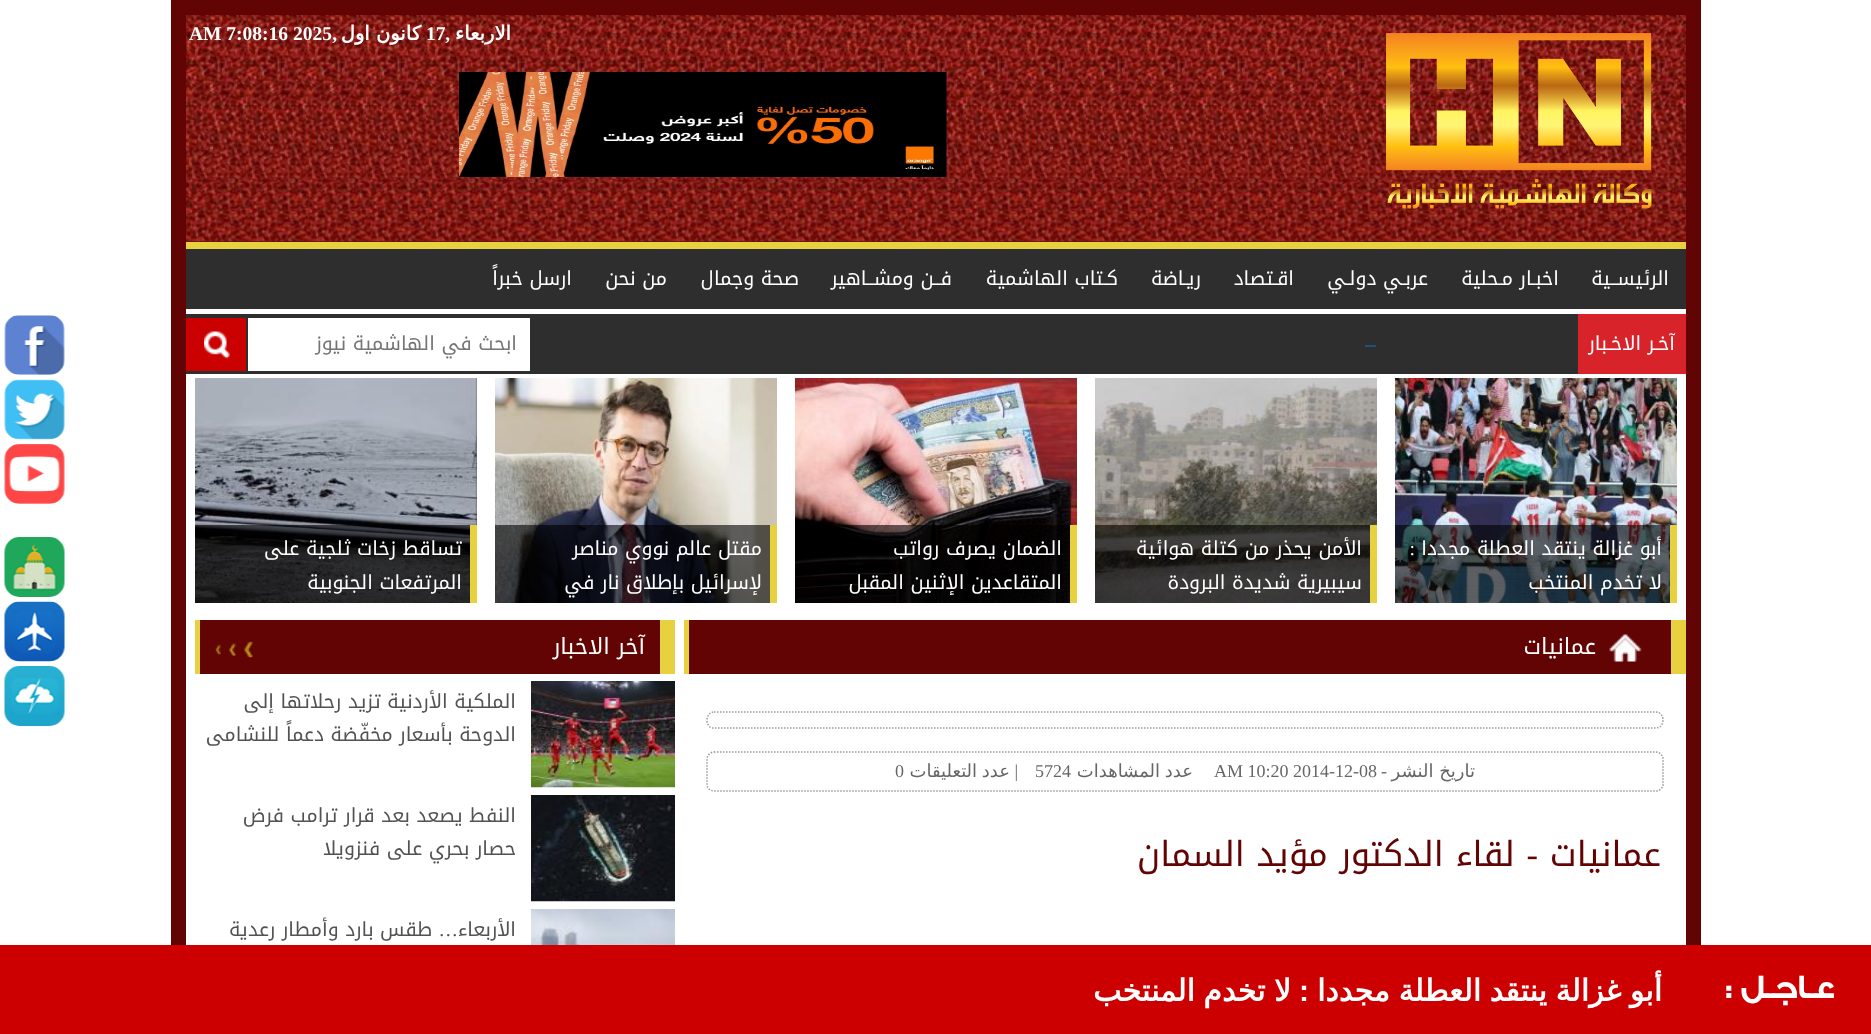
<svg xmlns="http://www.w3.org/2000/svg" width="1871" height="1034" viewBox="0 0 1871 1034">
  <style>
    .t1 { font: bold 19.5px DejaVu Sans; direction: rtl; fill: #fff; }
    .t2 { font: bold 19.5px Liberation Serif; direction: rtl; fill: #fff; }
    .t3 { font: bold 19.5px Liberation Serif; fill: #fff; }
    .t4 { font: 19.5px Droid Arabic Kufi; direction: rtl; fill: #fff; }
    .t5 { font: 19.5px Droid Arabic Kufi; direction: rtl; fill: #757575; }
    .t6 { font: 19.5px Liberation Serif; direction: rtl; fill: #fff; }
    .t7 { font: 22.5px Droid Arabic Kufi; direction: rtl; fill: #fff; }
    .t8 { font: 18px DejaVu Sans; direction: rtl; fill: #666; }
    .t9 { font: 18px Liberation Serif; direction: rtl; fill: #666; }
    .t10 { font: 18px Liberation Serif; fill: #666; }
    .t11 { font: 34.5px Droid Arabic Kufi; direction: rtl; fill: #630404; }
    .t12 { font: 34.5px Liberation Serif; direction: rtl; fill: #630404; }
    .t13 { font: 19.5px Droid Arabic Kufi; direction: rtl; fill: #525252; }
    .t14 { font: 19.5px Liberation Serif; direction: rtl; fill: #525252; }
    .t15 { font: bold 33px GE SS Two; direction: rtl; fill: #fff; }
    .t16 { font: bold 30px DejaVu Sans; direction: rtl; fill: #fff; }
    .t17 { font: bold 30px Liberation Sans; direction: rtl; fill: #fff; }
  </style>
  <rect width="100%" height="100%" fill="#fff"/>
  <rect x="186" y="0" width="1500" height="15" fill="#630404"/>
  <rect x="1686" y="0" width="15" height="945" fill="#630404"/>
  <rect x="171" y="0" width="15" height="945" fill="#630404"/>
  <rect x="186" y="241" width="1500" height="1" fill="#630404"/>
  <image x="186" y="15" width="1500" height="227" href="images/1.png"/>
  <image x="1386" y="33" width="266" height="176" href="images/2.png"/>
  <text x="511" y="40" class="t1">الاربعاء</text>
  <text x="450" y="40" class="t2">,</text>
  <text x="426" y="40" class="t3">17</text>
  <text x="421" y="40" class="t1">كانون اول</text>
  <text x="337" y="40" class="t2">,</text>
  <text x="293" y="40" class="t3">2025</text>
  <text x="189" y="40" class="t3">AM 7:08:16</text>
  <image x="459" y="72" width="488" height="105" href="images/3.png"/>
  <rect x="186" y="249" width="1500" height="60" fill="#2e2e2e"/>
  <rect x="186" y="242" width="1500" height="7" fill="#e7d13e"/>
  <text x="1669" y="285" class="t4">الرئيســية</text>
  <text x="1559" y="285" class="t4">اخبـار مـحلية</text>
  <text x="1428" y="285" class="t4">عربـي دولـي</text>
  <text x="1294" y="285" class="t4">اقـتصاد</text>
  <text x="1201" y="285" class="t4">ريـاضة</text>
  <text x="1118" y="285" class="t4">كـتاب الهاشمية</text>
  <text x="952" y="285" class="t4">فــن ومشــاهير</text>
  <text x="799" y="285" class="t4">صحة وجمال</text>
  <text x="667" y="285" class="t4">من نحن</text>
  <text x="572" y="285" class="t4">ارسل خبراً</text>
  <rect x="186" y="314" width="1392" height="60" fill="#2e2e2e"/>
  <rect x="1578" y="314" width="108" height="60" fill="#d8232a"/>
  <text x="1675" y="350" class="t4">آخـر الاخـبار</text>
  <rect x="1365" y="345" width="11" height="2" fill="#1f527b"/>
  <rect x="248" y="318" width="282" height="53" fill="#fff"/>
  <text x="517" y="350" class="t5">ابحث في الهاشمية نيوز</text>
  <rect x="186" y="318" width="60" height="53" fill="#cb0000"/>
  <image x="204" y="331" width="26" height="28" href="images/4.png"/>
  <image x="1395" y="378" width="282" height="225" href="images/5.png"/>
  <rect x="1395" y="525" width="275" height="78" fill="#00000099"/>
  <rect x="1670" y="525" width="7" height="78" fill="#e7d13e"/>
  <text x="1662" y="555" class="t4">أبو غزالة ينتقد العطلة مجددا</text>
  <text x="1415" y="555" class="t6">:</text>
  <text x="1662" y="589" class="t4">لا تخدم المنتخب</text>
  <image x="1095" y="378" width="282" height="225" href="images/6.png"/>
  <rect x="1095" y="525" width="275" height="78" fill="#00000099"/>
  <rect x="1370" y="525" width="7" height="78" fill="#e7d13e"/>
  <text x="1362" y="555" class="t4">الأمن يحذر من كتلة هوائية</text>
  <text x="1362" y="589" class="t4">سيبيرية شديدة البرودة</text>
  <image x="795" y="378" width="282" height="225" href="images/7.png"/>
  <rect x="795" y="525" width="275" height="78" fill="#00000099"/>
  <rect x="1070" y="525" width="7" height="78" fill="#e7d13e"/>
  <text x="1062" y="555" class="t4">الضمان يصرف رواتب</text>
  <text x="1062" y="589" class="t4">المتقاعدين الإثنين المقبل</text>
  <image x="495" y="378" width="282" height="225" href="images/8.png"/>
  <rect x="495" y="525" width="275" height="78" fill="#00000099"/>
  <rect x="770" y="525" width="7" height="78" fill="#e7d13e"/>
  <text x="762" y="555" class="t4">مقتل عالم نووي مناصر</text>
  <text x="762" y="589" class="t4">لإسرائيل بإطلاق نار في</text>
  <image x="195" y="378" width="282" height="225" href="images/9.png"/>
  <rect x="195" y="525" width="275" height="78" fill="#00000099"/>
  <rect x="470" y="525" width="7" height="78" fill="#e7d13e"/>
  <text x="462" y="555" class="t4">تساقط زخات ثلجية على</text>
  <text x="462" y="589" class="t4">المرتفعات الجنوبية</text>
  <rect x="689" y="620" width="982" height="54" fill="#630404"/>
  <rect x="1671" y="620" width="15" height="54" fill="#e7d13e"/>
  <rect x="684" y="620" width="5" height="54" fill="#e7d13e"/>
  <image x="1609" y="634" width="33" height="28" href="images/10.png"/>
  <text x="1596" y="654" class="t7">عمانيات</text>
  <path d="M714 712H1656C1664 712 1665.5 725 1658.5 727.5L1656 728H712.5C704.5 726.5 705.5 712 714 712Z" fill="none" stroke="#999" stroke-width="1.5" stroke-dasharray="1.5 1.5"/>
  <path d="M714 752H1656C1659.5 752 1663 755.5 1663 759V784.5C1663 788 1659.5 791 1656 791H714C710.5 791 707 788 707 784.5V759C707 755.5 710.5 752 714 752Z" fill="none" stroke="#999" stroke-width="1.5" stroke-dasharray="1.5 1.5"/>
  <text x="1475" y="777" class="t8">تاريخ النشر</text>
  <text x="1387" y="777" class="t9">-</text>
  <text x="1214" y="777" class="t10">AM 10:20 2014-12-08</text>
  <text x="1193" y="777" word-spacing="-1" class="t8">عدد المشاهدات</text>
  <text x="1035" y="777" class="t10">5724</text>
  <text x="1018" y="777" class="t9">|</text>
  <text x="1010" y="777" word-spacing="-1" class="t8">عدد التعليقات</text>
  <text x="895" y="777" class="t10">0</text>
  <text x="1661" y="866" class="t11">عمانيات</text>
  <text x="1538" y="866" class="t12">-</text>
  <text x="1515" y="866" class="t11">لقاء الدكتور مؤيد السمان</text>
  <rect x="200" y="620" width="460" height="54" fill="#630404"/>
  <rect x="660" y="620" width="15" height="54" fill="#e7d13e"/>
  <rect x="195" y="620" width="5" height="54" fill="#e7d13e"/>
  <text x="645" y="654" class="t7">آخر الاخبار</text>
  <image x="215" y="641" width="39" height="17" href="images/11.png"/>
  <image x="531" y="681" width="144" height="107" href="images/12.png"/>
  <text x="516" y="708" class="t13">الملكية الأردنية تزيد رحلاتها إلى</text>
  <text x="516" y="741" class="t13">الدوحة بأسعار مخفّضة دعماً للنشامى</text>
  <image x="531" y="795" width="144" height="107" href="images/13.png"/>
  <text x="516" y="822" class="t13">النفط يصعد بعد قرار ترامب فرض</text>
  <text x="516" y="855" class="t13">حصار بحري على فنزويلا</text>
  <image x="531" y="909" width="144" height="36" href="images/14.png"/>
  <text x="516" y="936" class="t13">الأربعاء</text>
  <text x="458" y="936" class="t14">…</text>
  <text x="432" y="936" class="t13">طقس بارد وأمطار رعدية</text>
  <image x="4" y="315" width="61" height="60" href="images/15.png"/>
  <image x="4" y="379" width="61" height="61" href="images/16.png"/>
  <image x="4" y="444" width="61" height="60" href="images/17.png"/>
  <image x="4" y="537" width="61" height="60" href="images/18.png"/>
  <image x="4" y="601" width="61" height="61" href="images/19.png"/>
  <image x="4" y="666" width="61" height="60" href="images/20.png"/>
  <rect x="0" y="945" width="1871" height="89" fill="#c00"/>
  <text x="1834" y="998" class="t15">عـاجـل :</text>
  <text x="1662" y="1001" word-spacing="-1" class="t16">أبو غزالة ينتقد العطلة مجددا</text>
  <text x="1309" y="1001" class="t17">:</text>
  <text x="1291" y="1001" word-spacing="-1" class="t16">لا تخدم المنتخب</text>
</svg>
